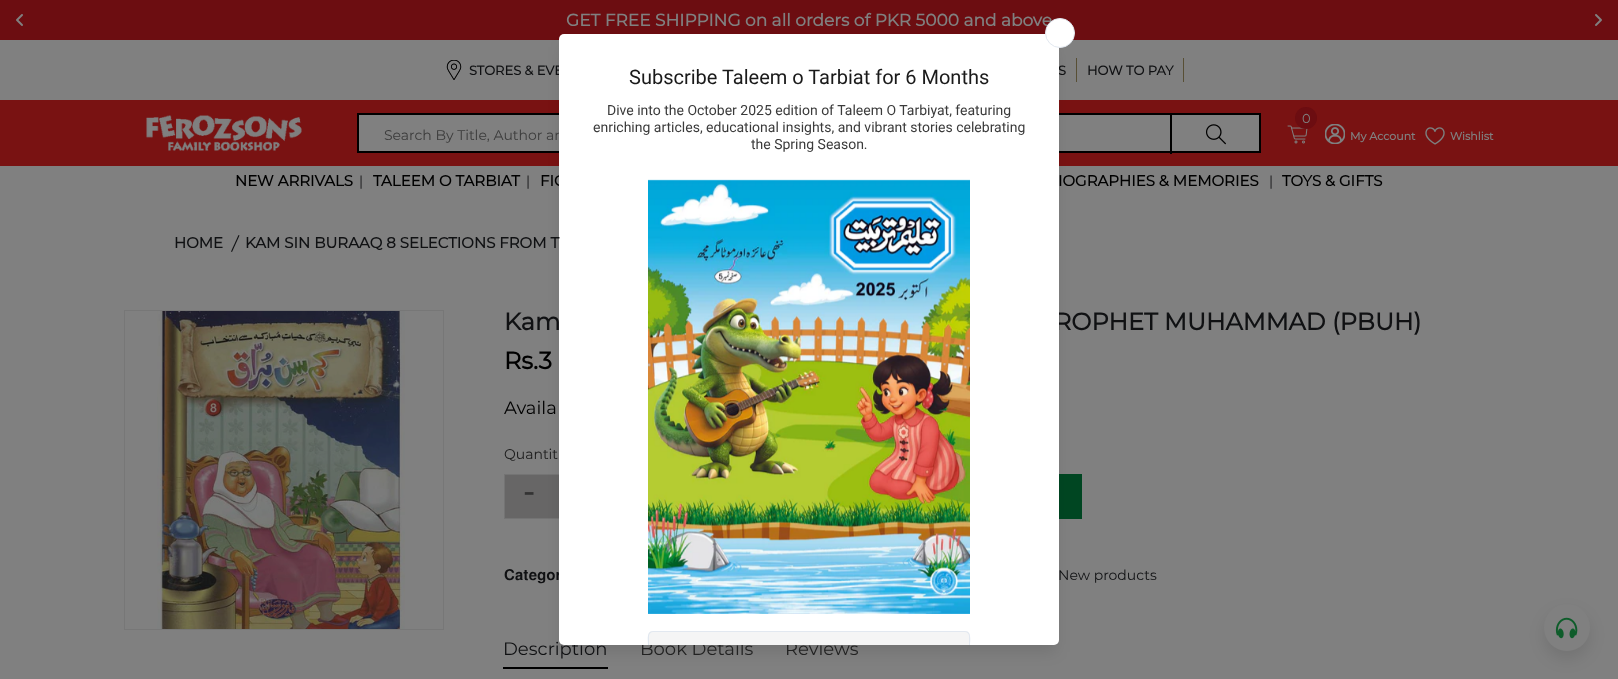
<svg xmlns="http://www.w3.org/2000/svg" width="1618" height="679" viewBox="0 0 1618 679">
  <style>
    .t1 { font: bold 17px Montserrat; fill: #808080; }
    .t2 { font: bold 13px Montserrat; fill: #101113; }
    .t3 { font: 14px Montserrat; fill: #3b3b3b; }
    .t4 { font: bold 15px Montserrat; fill: #000; }
    .t5 { font: bold 24px Montserrat; fill: #101113; }
    .t6 { font: 15px FreeSans; fill: #101113; }
    .t7 { font: 18px Montserrat; fill: #101113; }
    .t8 { font: 18px Montserrat; fill: #222; }
    .t9 { font: 20px Roboto; fill: #1a1a1a; }
    .t10 { font: 14px Roboto; fill: #3b3b3b; }
    .t11 { font: 13px Montserrat; fill: #808080; }
    .t12 { font: bold 11px Montserrat; fill: #808080; }
    .t13 { font: 14px Montserrat; fill: #101113; }
    .t14 { font: bold 15px Montserrat; fill: #101113; }
    .t15 { font: bold 24px Montserrat; fill: #000; }
    .t16 { font: 18px Montserrat; fill: #000; }
    .t17 { font: 14px Montserrat; fill: #1a1a1a; }
    .t18 { font: bold 30px Montserrat; fill: #333; }
  </style>
  <defs>
    <clipPath id="clip1"><rect x="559" y="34" width="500" height="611"/></clipPath>
  </defs>
  <rect width="100%" height="100%" fill="#808080"/>
  <rect x="0" y="0" width="1618" height="40" fill="#6c0d11"/>
  <text x="566" y="26" class="t1">GET FREE SHIPPING on all orders of PKR 5000 and above</text>
  <image x="16" y="14" width="7" height="12" href="images/1.png"/>
  <image x="1595" y="14" width="7" height="12" href="images/2.png"/>
  <image x="446" y="60" width="16" height="20" href="images/3.png"/>
  <text x="469" y="75" class="t2">STORES &amp; EVE</text>
  <rect x="1076" y="58" width="1" height="24" fill="#584f35"/>
  <text x="1058" y="75" class="t2">S</text>
  <rect x="1183" y="58" width="1" height="24" fill="#584f35"/>
  <text x="1087" y="75" class="t2">HOW TO PAY</text>
  <rect x="0" y="100" width="1618" height="66" fill="#791212"/>
  <rect x="358" y="114" width="902" height="38" fill="#808080" stroke="#000" stroke-width="2"/>
  <rect x="505" y="475" width="54" height="43" fill="#676666"/>
  <rect x="504.5" y="474.5" width="149" height="44" fill="none" stroke="#747474"/>
  <rect x="1059" y="474" width="23" height="45" fill="#004622"/>
  <rect x="503" y="667" width="105" height="2" fill="#000"/>
  <rect x="562" y="47" width="494" height="605" rx="2" fill="#0000001a" filter="blur(7.5px)"/>
  <g clip-path="url(#clip1)">
    <rect x="562" y="37" width="494" height="605" rx="2" fill="#0000001f" filter="blur(10px)"/>
  </g>
  <text x="384" y="140" class="t3">Search By Title, Author an</text>
  <text x="540" y="186" class="t4">FIC</text>
  <text x="1054" y="330" class="t5">ROPHET MUHAMMAD (PBUH)</text>
  <text x="504" y="580" class="t6">𝐂𝐚𝐭𝐞𝐠𝐨𝐫</text>
  <text x="503" y="655" class="t7">Description</text>
  <text x="640" y="655" class="t8">Book Details</text>
  <text x="785" y="655" class="t8">Reviews</text>
  <rect x="559" y="34" width="500" height="611" rx="5" fill="#fff"/>
  <circle cx="1060" cy="33" r="14.5" fill="#fff" stroke="#e2e8f0"/>
  <text x="629" y="84" class="t9">Subscribe Taleem o Tarbiat for 6 Months</text>
  <text x="607" y="115" class="t10">Dive into the October 2025 edition of Taleem O Tarbiyat, featuring</text>
  <text x="593" y="132" class="t10">enriching articles, educational insights, and vibrant stories celebrating</text>
  <text x="751" y="149" class="t10">the Spring Season.</text>
  <image x="648" y="179" width="322" height="435" href="images/4.png"/>
  <path d="M653 631H965C968 631 970 633 970 636V645H648V636C648 633 650 631 653 631Z" fill="#f5f5f5"/>
  <path d="M653 631C646 631 648 641 648 645H649V636C649 634 651 632 653 632H965C967 632 969 634 969 636V645H970C970 641 972 631 965 631Z" fill="#e2e8f0"/>
  <image x="146" y="115" width="156" height="36" href="images/5.png"/>
  <rect x="1170" y="114" width="2" height="40" fill="#000"/>
  <image x="1206" y="124" width="20" height="21" href="images/6.png"/>
  <image x="1287" y="125" width="21" height="19" href="images/7.png"/>
  <circle cx="1306" cy="118" r="11" fill="#6c0d11"/>
  <text x="1302" y="123" class="t11">0</text>
  <image x="1325" y="124" width="20" height="20" href="images/8.png"/>
  <text x="1350" y="140" class="t12">My Account</text>
  <image x="1425" y="127" width="20" height="18" href="images/9.png"/>
  <text x="1450" y="140" class="t12">Wishlist</text>
  <text x="235" y="186" class="t4">NEW ARRIVALS</text>
  <text x="359" y="186" class="t13">|</text>
  <text x="373" y="186" class="t4">TALEEM O TARBIAT</text>
  <text x="526" y="186" class="t13">|</text>
  <text x="1058" y="186" class="t4">IOGRAPHIES &amp; MEMORIES</text>
  <text x="1269" y="186" class="t13">|</text>
  <text x="1282" y="186" class="t4">TOYS &amp; GIFTS</text>
  <text x="174" y="248" class="t14">HOME</text>
  <path d="M239.5 235.5L232 252L231 251.5L238.5 235Z" fill="#101113"/>
  <text x="245" y="248" class="t14">KAM SIN BURAAQ 8 SELECTIONS FROM T</text>
  <rect x="124.5" y="310.5" width="319" height="319" fill="none" stroke="#777"/>
  <image x="157" y="311" width="248" height="318" href="images/10.png"/>
  <text x="504" y="330" class="t5">Kam</text>
  <text x="504" y="369" class="t15">Rs.3</text>
  <text x="504" y="414" class="t16">Availa</text>
  <text x="504" y="459" class="t17">Quantit</text>
  <text x="523" y="502" class="t18">-</text>
  <text x="1058" y="580" class="t13">New products</text>
  <rect x="1544" y="612" width="46" height="47" rx="23" fill="#0000001a" filter="blur(8px)"/>
  <rect x="1544" y="604" width="46" height="47" rx="23" fill="#808080"/>
  <image x="1555" y="617" width="23" height="22" href="images/11.png"/>
</svg>
